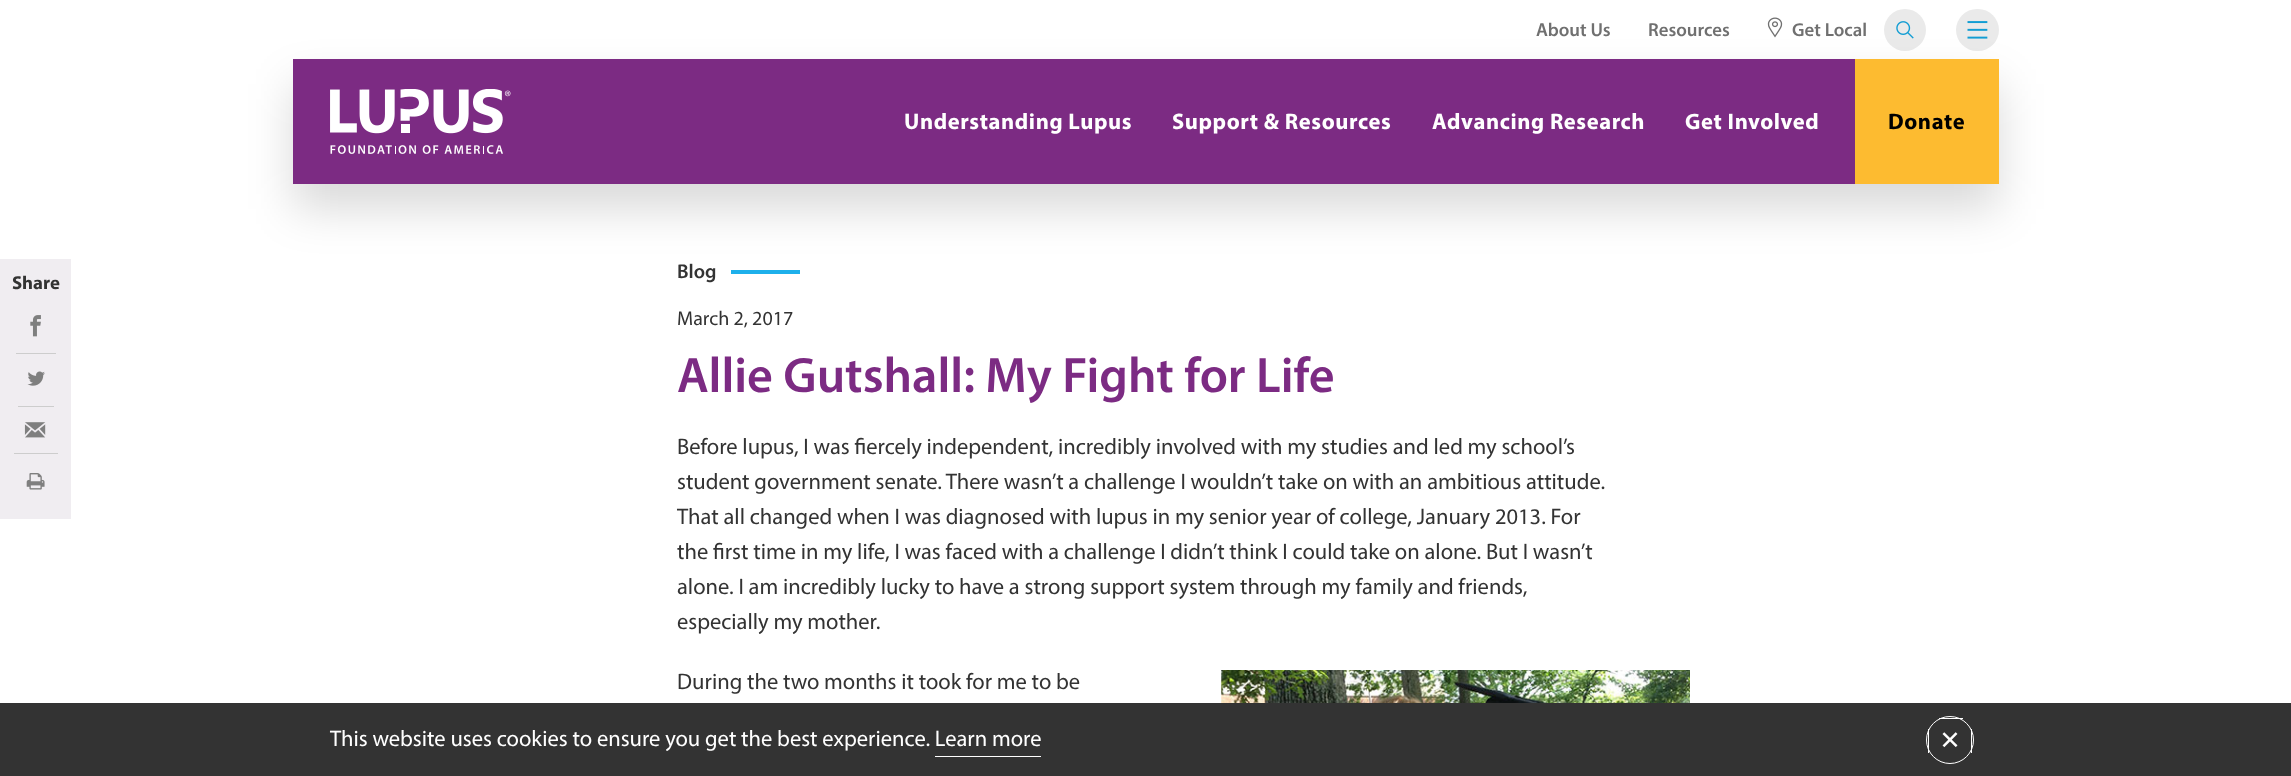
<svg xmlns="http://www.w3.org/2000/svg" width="2291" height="776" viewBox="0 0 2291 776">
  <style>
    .t1 { font: 600 18.75px Myriad; fill: #707070; }
    .t2 { font: bold 22.5px Myriad; letter-spacing: 0.6px; fill: #fff; }
    .t3 { font: bold 22.5px Myriad; letter-spacing: 0.6px; fill: #000; }
    .t4 { font: bold 18.75px Myriad; fill: #333; }
    .t5 { font: 600 20px Myriad; fill: #333; }
    .t6 { font: 20px Myriad; fill: #333; }
    .t7 { font: 600 50px Myriad; fill: #7c2b83; }
    .t8 { font: 22.5px Myriad; fill: #333; }
    .t9 { font: 22.5px Myriad; fill: #fff; }
  </style>
  <rect width="100%" height="100%" fill="#fff"/>
  <text x="1536" y="36" class="t1">About Us</text>
  <text x="1648" y="36" class="t1">Resources</text>
  <image x="1767" y="17" width="16" height="21" href="images/1.png"/>
  <text x="1792" y="36" class="t1">Get Local</text>
  <circle cx="1905" cy="30" r="21" fill="#eaeaea"/>
  <image x="1896" y="21" width="18" height="18" href="images/2.png"/>
  <rect x="1956" y="9" width="43" height="42" rx="21" fill="#eaeaea"/>
  <image x="1967" y="21" width="21" height="18" href="images/3.png"/>
  <rect x="731" y="270" width="69" height="4" fill="#1db0eb"/>
  <rect x="293" y="84" width="1706" height="125" fill="#00000026" filter="blur(22.5px)"/>
  <rect x="293" y="59" width="1562" height="125" fill="#7c2b83"/>
  <image x="330" y="89" width="181" height="65" href="images/4.png"/>
  <text x="904" y="129" class="t2">Understanding Lupus</text>
  <text x="1172" y="129" class="t2">Support &amp; Resources</text>
  <text x="1432" y="129" class="t2">Advancing Research</text>
  <text x="1685" y="129" class="t2">Get Involved</text>
  <rect x="1855" y="59" width="144" height="125" fill="#fdbb30"/>
  <text x="1888" y="129" class="t3">Donate</text>
  <rect x="0" y="259" width="71" height="260" fill="#f0edf1"/>
  <text x="12" y="289" class="t4">Share</text>
  <image x="30" y="315" width="11" height="22" href="images/5.png"/>
  <rect x="16" y="353" width="40" height="1" fill="#cdcdcd"/>
  <image x="27" y="371" width="18" height="15" href="images/6.png"/>
  <rect x="18" y="406" width="36" height="1" fill="#cdcdcd"/>
  <image x="24" y="422" width="22" height="16" href="images/7.png"/>
  <rect x="14" y="453" width="44" height="1" fill="#cdcdcd"/>
  <image x="26" y="473" width="19" height="17" href="images/8.png"/>
  <text x="677" y="278" class="t5">Blog</text>
  <text x="677" y="325" class="t6">March 2, 2017</text>
  <text x="677" y="392" class="t7">Allie Gutshall: My Fight for Life</text>
  <text x="677" y="454" class="t8">Before lupus, I was fiercely independent, incredibly involved with my studies and led my school’s</text>
  <text x="677" y="489" class="t8">student government senate. There wasn’t a challenge I wouldn’t take on with an ambitious attitude.</text>
  <text x="677" y="524" class="t8">That all changed when I was diagnosed with lupus in my senior year of college, January 2013. For</text>
  <text x="677" y="559" class="t8">the first time in my life, I was faced with a challenge I didn’t think I could take on alone. But I wasn’t</text>
  <text x="677" y="594" class="t8">alone. I am incredibly lucky to have a strong support system through my family and friends,</text>
  <text x="677" y="629" class="t8">especially my mother.</text>
  <text x="677" y="689" class="t8">During the two months it took for me to be</text>
  <image x="1221" y="670" width="469" height="33" href="images/9.png"/>
  <rect x="0" y="703" width="2291" height="73" fill="#333"/>
  <text x="330" y="746" class="t9">This website uses cookies to ensure you get the best experience. Learn more</text>
  <rect x="935" y="756" width="106" height="1" fill="#fff"/>
  <circle cx="1950" cy="740" r="23.5" fill="none" stroke="#fff"/>
  <rect x="1939" y="718" width="24" height="1" fill="#fff"/>
  <rect x="1971" y="729" width="1" height="24" fill="#fff"/>
  <rect x="1928" y="729" width="1" height="24" fill="#fff"/>
  <image x="1942" y="732" width="16" height="16" href="images/10.png"/>
</svg>
